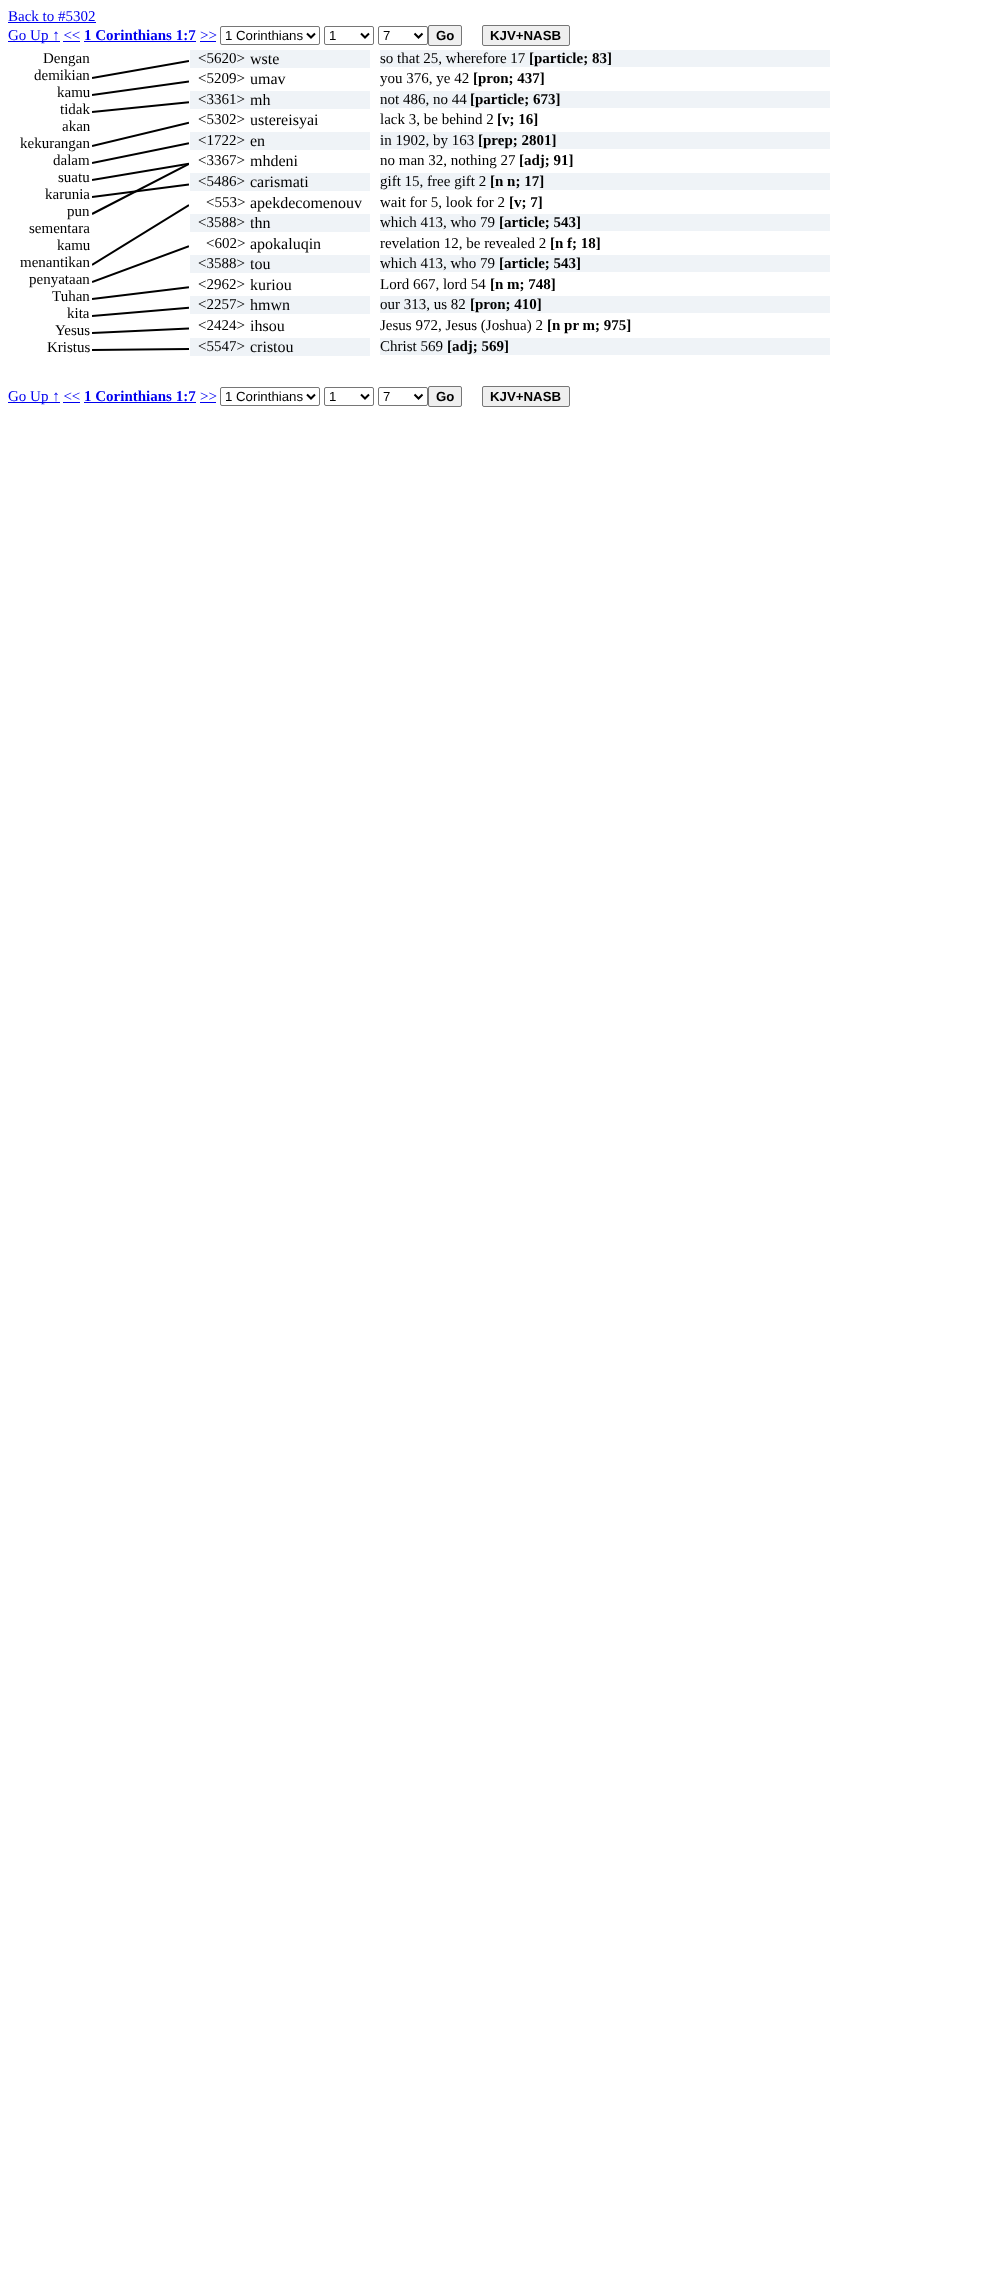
<svg xmlns="http://www.w3.org/2000/svg" width="983" height="2282" viewBox="0 0 983 2282">
  <style>
    .t1 { font: 15px Liberation Serif; fill: #00e; }
    .t2 { font: bold 15px Liberation Serif; fill: #00e; }
    .t3 { font: 13.25px Liberation Sans; fill: #000; }
    .t4 { font: bold 13.25px Liberation Sans; fill: #000; }
    .t5 { font: 15px Liberation Serif; fill: #000; }
    .t6 { font: 16px Liberation Serif; fill: #000; }
    .t7 { font: bold 15px Liberation Serif; fill: #000; }
  </style>
  <rect width="100%" height="100%" fill="#fff"/>
  <text x="8" y="21" class="t1">Back to #5302</text>
  <rect x="8" y="22" width="88" height="1" fill="#00e"/>
  <rect x="8" y="41" width="52" height="1" fill="#00e"/>
  <text x="8" y="40" class="t1">Go Up ↑ &lt;&lt;</text>
  <text x="84" y="40" class="t2">1 Corinthians 1:7</text>
  <rect x="84" y="41" width="112" height="1" fill="#00e"/>
  <text x="200" y="40" class="t1">&gt;&gt;</text>
  <rect x="200" y="41" width="16" height="1" fill="#00e"/>
  <rect x="220.5" y="26.5" width="99" height="18" rx="1.5" fill="none" stroke="#767676"/>
  <path d="M307 33.5L311 37.5L315 33.5" fill="none" stroke="#000" stroke-width="2"/>
  <text x="225" y="40" class="t3">1 Corinthians</text>
  <rect x="324.5" y="26.5" width="49" height="18" rx="1.5" fill="none" stroke="#767676"/>
  <path d="M361 33.5L365 37.5L369 33.5" fill="none" stroke="#000" stroke-width="2"/>
  <text x="329" y="40" class="t3">1</text>
  <rect x="378.5" y="26.5" width="49" height="18" rx="1.5" fill="none" stroke="#767676"/>
  <path d="M414.5 33.5L418.5 37.5L422.5 33.5" fill="none" stroke="#000" stroke-width="2"/>
  <text x="383" y="40" class="t3">7</text>
  <rect x="428.5" y="25.5" width="33" height="20" rx="1.5" fill="#efefef" stroke="#767676"/>
  <text x="436" y="40" class="t4">Go</text>
  <rect x="482.5" y="25.5" width="87" height="20" rx="1.5" fill="#efefef" stroke="#767676"/>
  <text x="490" y="40" class="t4">KJV+NASB</text>
  <rect x="63" y="41" width="17" height="1" fill="#00e"/>
  <text x="43" y="63" class="t5">Dengan</text>
  <image x="92" y="60" width="97" height="291" href="images/1.png"/>
  <rect x="190" y="50" width="180" height="18" fill="#eff3f7"/>
  <text x="198" y="63" class="t5">&lt;5620&gt;</text>
  <text x="250" y="64" class="t6">wste</text>
  <rect x="380" y="50" width="450" height="17" fill="#eff3f7"/>
  <text x="380" y="63" class="t5">so that 25, wherefore 17</text>
  <text x="529" y="63" class="t7">[particle; 83]</text>
  <text x="34" y="80" class="t5">demikian</text>
  <text x="198" y="83" class="t5">&lt;5209&gt;</text>
  <text x="250" y="84" class="t6">umav</text>
  <text x="380" y="83" class="t5">you 376, ye 42</text>
  <text x="473" y="83" class="t7">[pron; 437]</text>
  <text x="57" y="97" class="t5">kamu</text>
  <rect x="190" y="91" width="180" height="18" fill="#eff3f7"/>
  <text x="198" y="104" class="t5">&lt;3361&gt;</text>
  <text x="250" y="105" class="t6">mh</text>
  <rect x="380" y="91" width="450" height="17" fill="#eff3f7"/>
  <text x="380" y="104" class="t5">not 486, no 44</text>
  <text x="470" y="104" class="t7">[particle; 673]</text>
  <text x="60" y="114" class="t5">tidak</text>
  <text x="62" y="131" class="t5">akan</text>
  <text x="198" y="124" class="t5">&lt;5302&gt;</text>
  <text x="250" y="125" class="t6">ustereisyai</text>
  <text x="380" y="124" class="t5">lack 3, be behind 2</text>
  <text x="497" y="124" class="t7">[v; 16]</text>
  <text x="20" y="148" class="t5">kekurangan</text>
  <rect x="190" y="132" width="180" height="18" fill="#eff3f7"/>
  <text x="198" y="145" class="t5">&lt;1722&gt;</text>
  <text x="250" y="146" class="t6">en</text>
  <rect x="380" y="132" width="450" height="17" fill="#eff3f7"/>
  <text x="380" y="145" class="t5">in 1902, by 163</text>
  <text x="478" y="145" class="t7">[prep; 2801]</text>
  <text x="53" y="165" class="t5">dalam</text>
  <text x="198" y="165" class="t5">&lt;3367&gt;</text>
  <text x="250" y="166" class="t6">mhdeni</text>
  <text x="380" y="165" class="t5">no man 32, nothing 27</text>
  <text x="519" y="165" class="t7">[adj; 91]</text>
  <text x="58" y="182" class="t5">suatu</text>
  <rect x="190" y="173" width="180" height="18" fill="#eff3f7"/>
  <text x="198" y="186" class="t5">&lt;5486&gt;</text>
  <text x="250" y="187" class="t6">carismati</text>
  <rect x="380" y="173" width="450" height="17" fill="#eff3f7"/>
  <text x="380" y="186" class="t5">gift 15, free gift 2</text>
  <text x="490" y="186" class="t7">[n n; 17]</text>
  <text x="45" y="199" class="t5">karunia</text>
  <text x="206" y="207" class="t5">&lt;553&gt;</text>
  <text x="250" y="208" class="t6">apekdecomenouv</text>
  <text x="380" y="207" class="t5">wait for 5, look for 2</text>
  <text x="509" y="207" class="t7">[v; 7]</text>
  <text x="67" y="216" class="t5">pun</text>
  <text x="29" y="233" class="t5">sementara</text>
  <rect x="190" y="214" width="180" height="18" fill="#eff3f7"/>
  <text x="198" y="227" class="t5">&lt;3588&gt;</text>
  <text x="250" y="228" class="t6">thn</text>
  <rect x="380" y="214" width="450" height="17" fill="#eff3f7"/>
  <text x="380" y="227" class="t5">which 413, who 79</text>
  <text x="499" y="227" class="t7">[article; 543]</text>
  <text x="57" y="250" class="t5">kamu</text>
  <text x="206" y="248" class="t5">&lt;602&gt;</text>
  <text x="250" y="249" class="t6">apokaluqin</text>
  <text x="380" y="248" class="t5">revelation 12, be revealed 2</text>
  <text x="550" y="248" class="t7">[n f; 18]</text>
  <text x="20" y="267" class="t5">menantikan</text>
  <rect x="190" y="255" width="180" height="18" fill="#eff3f7"/>
  <text x="198" y="268" class="t5">&lt;3588&gt;</text>
  <text x="250" y="269" class="t6">tou</text>
  <rect x="380" y="255" width="450" height="17" fill="#eff3f7"/>
  <text x="380" y="268" class="t5">which 413, who 79</text>
  <text x="499" y="268" class="t7">[article; 543]</text>
  <text x="29" y="284" class="t5">penyataan</text>
  <text x="198" y="289" class="t5">&lt;2962&gt;</text>
  <text x="250" y="290" class="t6">kuriou</text>
  <text x="380" y="289" class="t5">Lord 667, lord 54</text>
  <text x="490" y="289" class="t7">[n m; 748]</text>
  <text x="52" y="301" class="t5">Tuhan</text>
  <text x="67" y="318" class="t5">kita</text>
  <rect x="190" y="296" width="180" height="18" fill="#eff3f7"/>
  <text x="198" y="309" class="t5">&lt;2257&gt;</text>
  <text x="250" y="310" class="t6">hmwn</text>
  <rect x="380" y="296" width="450" height="17" fill="#eff3f7"/>
  <text x="380" y="309" class="t5">our 313, us 82</text>
  <text x="470" y="309" class="t7">[pron; 410]</text>
  <text x="55" y="335" class="t5">Yesus</text>
  <text x="198" y="330" class="t5">&lt;2424&gt;</text>
  <text x="250" y="331" class="t6">ihsou</text>
  <text x="380" y="330" class="t5">Jesus 972, Jesus (Joshua) 2</text>
  <text x="547" y="330" class="t7">[n pr m; 975]</text>
  <text x="47" y="352" class="t5">Kristus</text>
  <rect x="190" y="338" width="180" height="18" fill="#eff3f7"/>
  <text x="198" y="351" class="t5">&lt;5547&gt;</text>
  <text x="250" y="352" class="t6">cristou</text>
  <rect x="380" y="338" width="450" height="17" fill="#eff3f7"/>
  <text x="380" y="351" class="t5">Christ 569</text>
  <text x="447" y="351" class="t7">[adj; 569]</text>
  <rect x="8" y="402" width="52" height="1" fill="#00e"/>
  <text x="8" y="401" class="t1">Go Up ↑ &lt;&lt;</text>
  <text x="84" y="401" class="t2">1 Corinthians 1:7</text>
  <rect x="84" y="402" width="112" height="1" fill="#00e"/>
  <text x="200" y="401" class="t1">&gt;&gt;</text>
  <rect x="200" y="402" width="16" height="1" fill="#00e"/>
  <rect x="220.5" y="387.5" width="99" height="18" rx="1.5" fill="none" stroke="#767676"/>
  <path d="M307 394.5L311 398.5L315 394.5" fill="none" stroke="#000" stroke-width="2"/>
  <text x="225" y="401" class="t3">1 Corinthians</text>
  <rect x="324.5" y="387.5" width="49" height="18" rx="1.5" fill="none" stroke="#767676"/>
  <path d="M361 394.5L365 398.5L369 394.5" fill="none" stroke="#000" stroke-width="2"/>
  <text x="329" y="401" class="t3">1</text>
  <rect x="378.5" y="387.5" width="49" height="18" rx="1.5" fill="none" stroke="#767676"/>
  <path d="M414.5 394.5L418.5 398.5L422.5 394.5" fill="none" stroke="#000" stroke-width="2"/>
  <text x="383" y="401" class="t3">7</text>
  <rect x="428.5" y="386.5" width="33" height="20" rx="1.5" fill="#efefef" stroke="#767676"/>
  <text x="436" y="401" class="t4">Go</text>
  <rect x="482.5" y="386.5" width="87" height="20" rx="1.5" fill="#efefef" stroke="#767676"/>
  <text x="490" y="401" class="t4">KJV+NASB</text>
  <rect x="63" y="402" width="17" height="1" fill="#00e"/>
</svg>
